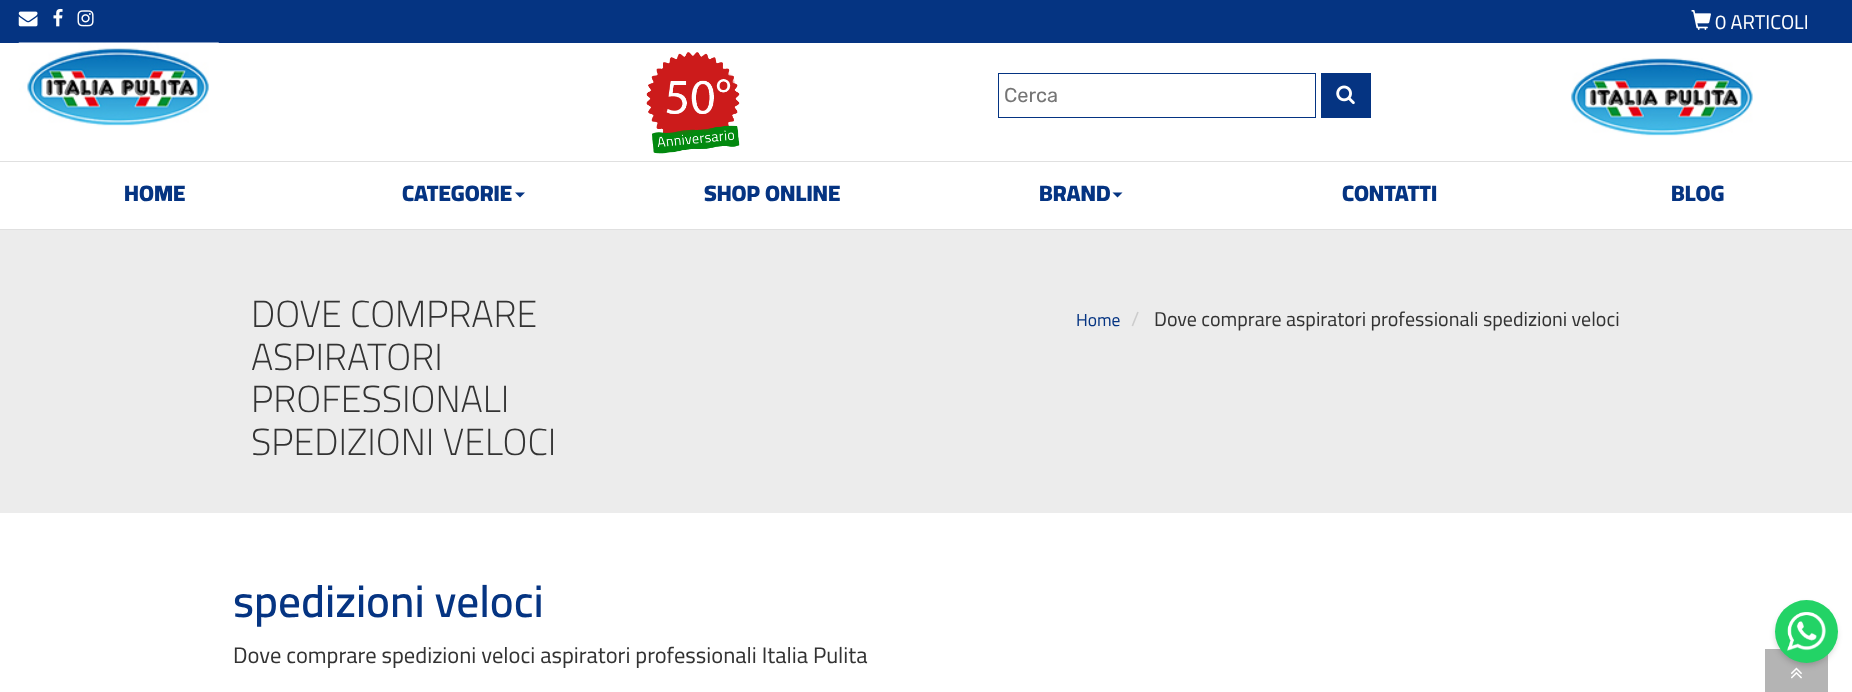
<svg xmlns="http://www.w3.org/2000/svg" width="1852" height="692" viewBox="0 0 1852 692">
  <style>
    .t1 { font: 20px Cairo; fill: #fff; }
    .t2 { font: 20px Rubik; fill: #757575; }
    .t3 { font: 900 22.5px Cairo; fill: #053482; }
    .t4 { font: 300 37.5px Cairo; fill: #333; }
    .t5 { font: 17.5px Cairo; fill: #053482; }
    .t6 { font: 20px Cairo; fill: #ccc; }
    .t7 { font: 20px Cairo; fill: #333; }
    .t8 { font: 600 45px Cairo; fill: #053482; }
    .t9 { font: 22.5px Cairo; fill: #333; }
  </style>
  <rect width="100%" height="100%" fill="#fff"/>
  <rect x="0" y="0" width="1852" height="43" fill="#053482"/>
  <rect x="0" y="229" width="1852" height="1" fill="#e0e0e0"/>
  <image x="18" y="11" width="20" height="16" href="images/1.png"/>
  <image x="53" y="8" width="10" height="19" href="images/2.png"/>
  <image x="77" y="10" width="17" height="17" href="images/3.png"/>
  <image x="1691" y="10" width="20" height="20" href="images/4.png"/>
  <text x="1715" y="29" class="t1">0 ARTICOLI</text>
  <image x="18" y="42" width="201" height="84" href="images/5.png"/>
  <image x="646" y="52" width="94" height="102" href="images/6.png"/>
  <rect x="998.5" y="73.5" width="317" height="44" fill="none" stroke="#053482"/>
  <text x="1004" y="102" class="t2">Cerca</text>
  <rect x="1321" y="73" width="50" height="45" fill="#053482"/>
  <image x="1336" y="85" width="19" height="20" href="images/7.png"/>
  <image x="1571" y="58" width="182" height="78" href="images/8.png"/>
  <rect x="0" y="161" width="1852" height="1" fill="#e0e0e0"/>
  <text x="124" y="201" class="t3">HOME</text>
  <text x="402" y="201" class="t3">CATEGORIE</text>
  <path d="M515 192.5H525L520 197.5Z" fill="#053482"/>
  <text x="704" y="201" class="t3">SHOP ONLINE</text>
  <text x="1039" y="201" class="t3">BRAND</text>
  <path d="M1112.5 192.5H1122.5L1117.5 197.5Z" fill="#053482"/>
  <text x="1342" y="201" class="t3">CONTATTI</text>
  <text x="1671" y="201" class="t3">BLOG</text>
  <rect x="0" y="230" width="1852" height="283" fill="#ececec"/>
  <text x="251" y="327" class="t4">DOVE COMPRARE</text>
  <text x="251" y="370" class="t4">ASPIRATORI</text>
  <text x="251" y="412" class="t4">PROFESSIONALI</text>
  <text x="251" y="455" class="t4">SPEDIZIONI VELOCI</text>
  <text x="1076" y="326" class="t5">Home</text>
  <text x="1131" y="326" class="t6">/</text>
  <text x="1154" y="326" class="t7">Dove comprare aspiratori professionali spedizioni veloci</text>
  <text x="233" y="617" class="t8">spedizioni veloci</text>
  <text x="233" y="663" class="t9">Dove comprare spedizioni veloci aspiratori professionali Italia Pulita</text>
  <rect x="1765" y="649" width="63" height="43" fill="#b4b4b4"/>
  <image x="1791" y="667" width="11" height="12" href="images/10.png"/>
  <rect x="1776" y="605" width="60" height="60" rx="30" fill="#00000033" filter="blur(3px)"/>
  <circle cx="1806.5" cy="631.5" r="31.5" fill="#23d366"/>
  <image x="1787" y="612" width="39" height="39" href="images/9.png"/>
</svg>
